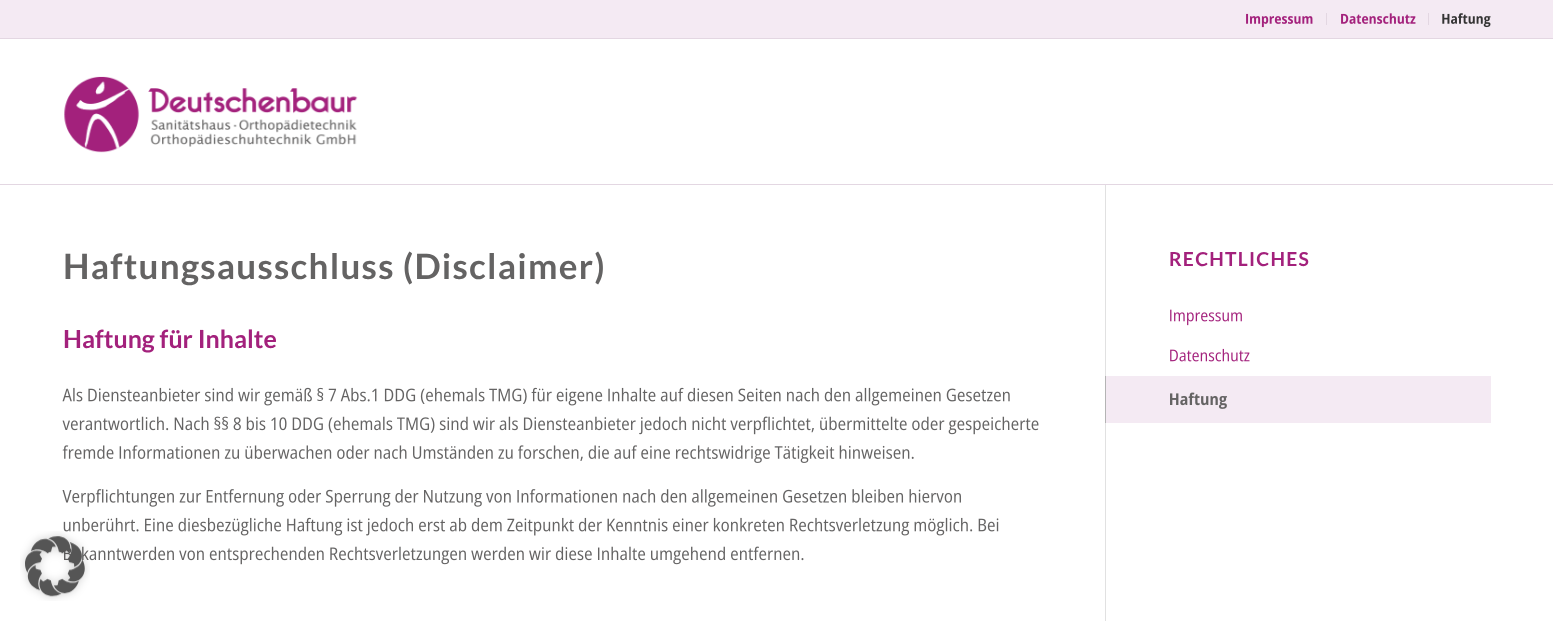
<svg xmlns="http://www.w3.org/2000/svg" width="1553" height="621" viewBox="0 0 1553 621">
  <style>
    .t1 { font: bold 35px Lato; letter-spacing: 1.25px; fill: #646363; }
    .t2 { font: bold 25px Lato; fill: #a3217c; }
    .t3 { font: bold 19.25px Lato; letter-spacing: 1.25px; fill: #a3217c; }
  </style>
  <rect width="100%" height="100%" fill="#fff"/>
  <rect x="0" y="0" width="1553" height="38" fill="#f4eaf3"/>
  <rect x="0" y="38" width="1553" height="1" fill="#e3d7e2"/>
  <rect x="1326" y="13" width="1" height="12" fill="#e3d7e2"/>
  <image x="1246" y="13" width="67" height="15" href="images/1.png"/>
  <rect x="1428" y="13" width="1" height="12" fill="#e3d7e2"/>
  <image x="1341" y="13" width="75" height="11" href="images/2.png"/>
  <image x="1442" y="13" width="49" height="15" href="images/3.png"/>
  <rect x="1105" y="184" width="1" height="437" fill="#e1e1e1"/>
  <rect x="0" y="184" width="1553" height="1" fill="#e3d7e2"/>
  <image x="64" y="76" width="294" height="77" href="images/4.png"/>
  <text x="63" y="279" class="t1">Haftungsausschluss (Disclaimer)</text>
  <text x="63" y="348" class="t2">Haftung für Inhalte</text>
  <image x="62" y="387" width="948" height="19" href="images/5.png"/>
  <image x="62" y="416" width="977" height="19" href="images/6.png"/>
  <image x="62" y="445" width="852" height="18" href="images/7.png"/>
  <image x="62" y="489" width="899" height="18" href="images/8.png"/>
  <image x="63" y="517" width="936" height="19" href="images/9.png"/>
  <image x="64" y="546" width="740" height="19" href="images/10.png"/>
  <text x="1169" y="266" class="t3">RECHTLICHES</text>
  <image x="1170" y="309" width="72" height="17" href="images/11.png"/>
  <image x="1170" y="348" width="80" height="14" href="images/12.png"/>
  <rect x="1105" y="376" width="386" height="47" fill="#00000033" filter="blur(0.5px)"/>
  <rect x="1106" y="376" width="385" height="47" fill="#f4eaf3"/>
  <image x="1170" y="392" width="57" height="17" href="images/13.png"/>
  <image x="20" y="531" width="70" height="70" href="images/14.png"/>
</svg>
